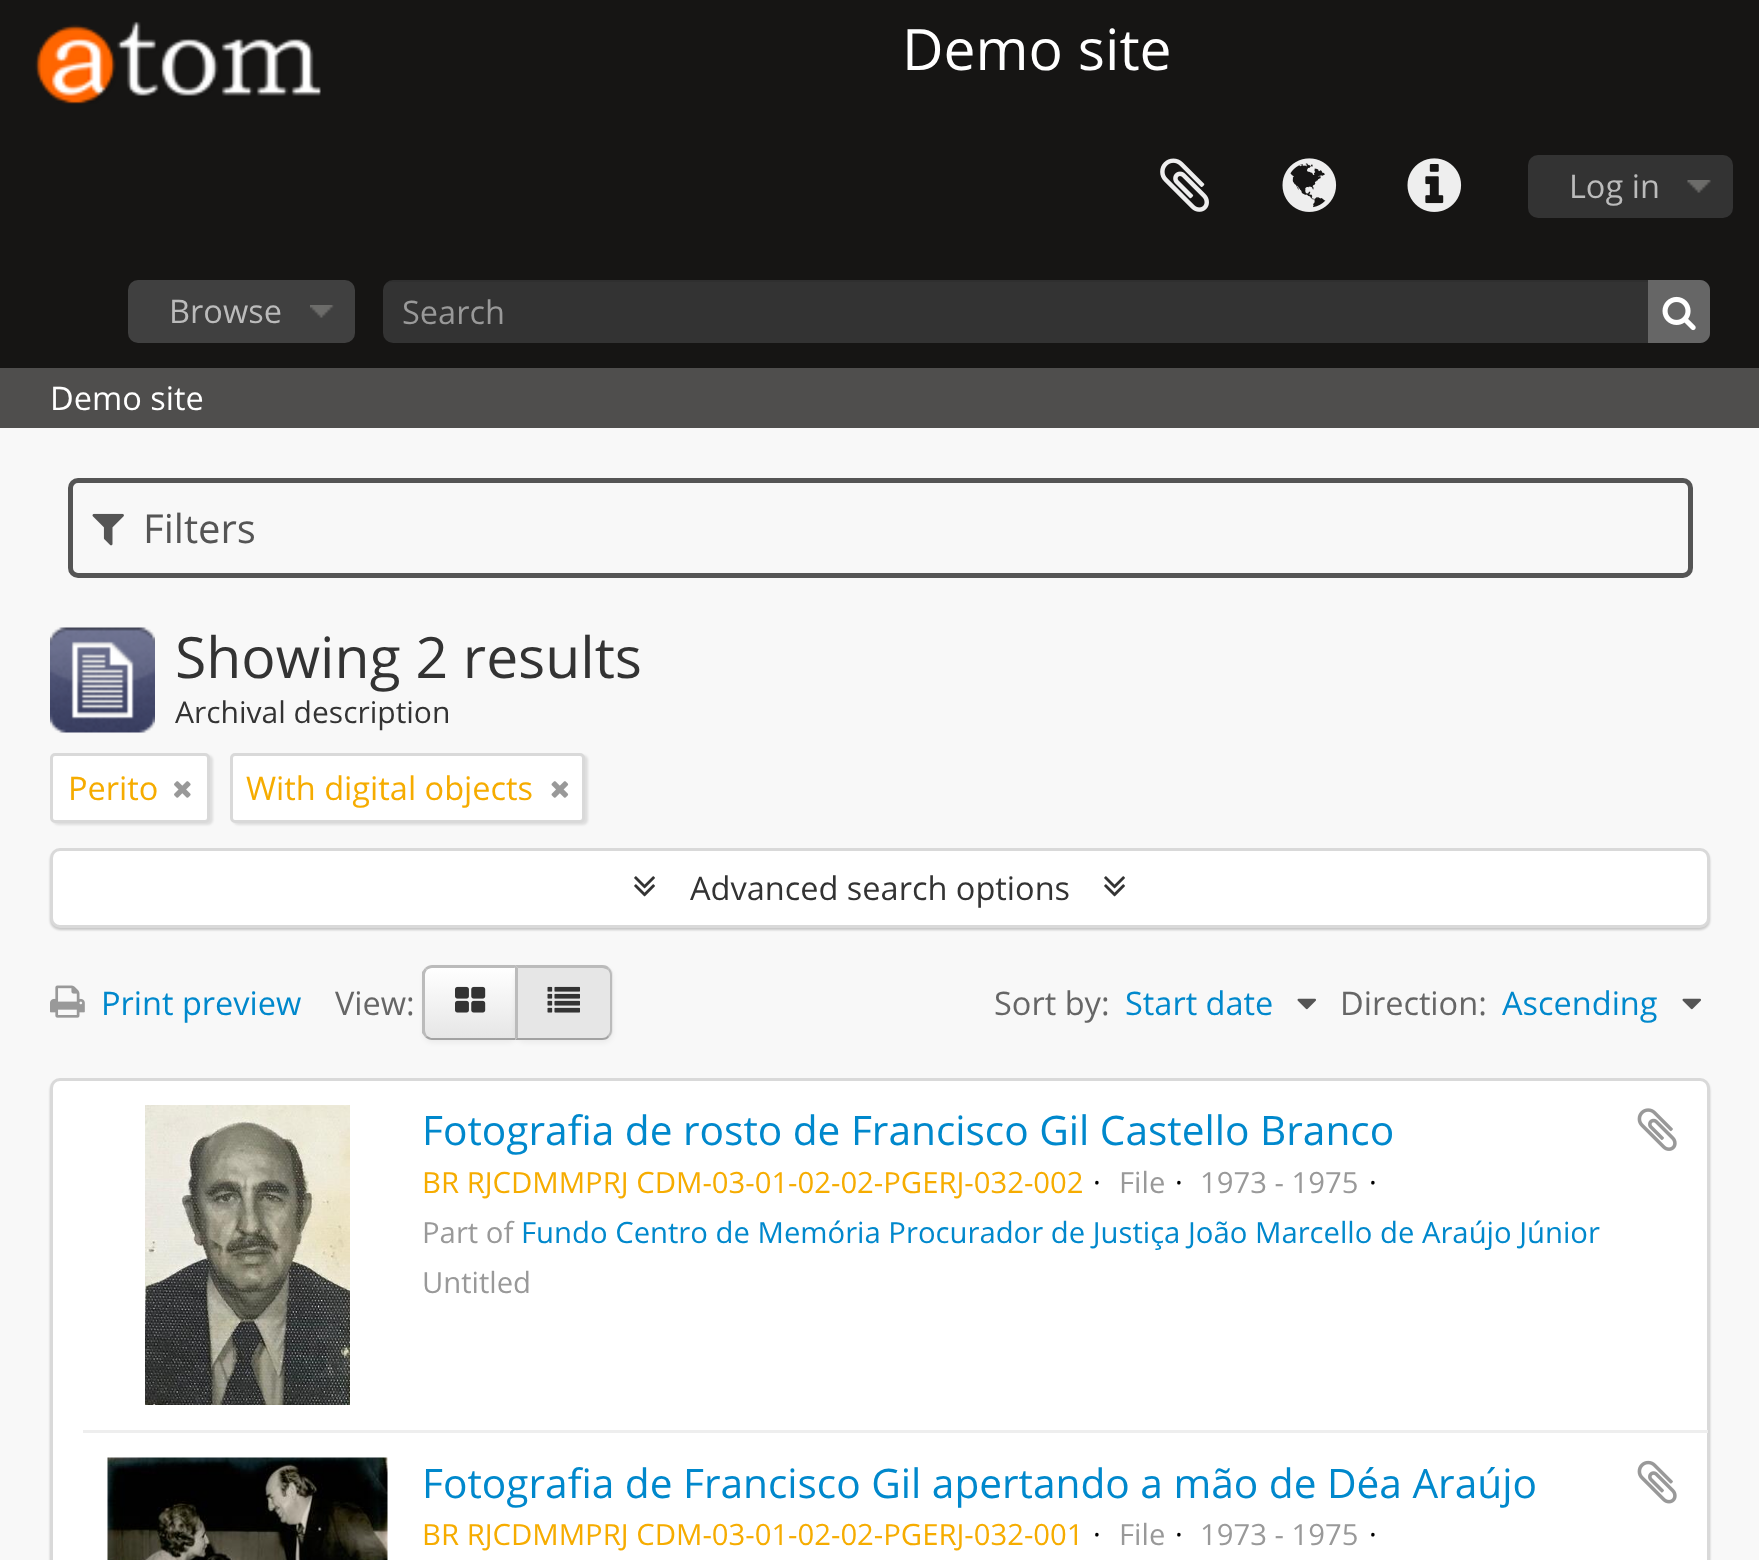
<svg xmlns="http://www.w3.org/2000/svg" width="1759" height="1560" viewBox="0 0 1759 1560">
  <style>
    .t1 { font: 57px Open Sans; fill: #fff; }
    .t2 { font: 32.5px Open Sans; fill: #bbb; }
    .t3 { font: 32.5px Open Sans; fill: #999; }
    .t4 { font: 32.5px Open Sans; fill: #fff; }
    .t5 { font: 40px Open Sans; fill: #555; }
    .t6 { font: 57px Open Sans; fill: #333; }
    .t7 { font: 30px Open Sans; fill: #333; }
    .t8 { font: 32.5px Open Sans; fill: #f6ac00; }
    .t9 { font: 32.5px Open Sans; fill: #333; }
    .t10 { font: 32.5px Open Sans; fill: #08c; }
    .t11 { font: 32.5px Open Sans; fill: #666; }
    .t12 { font: 40.6px Open Sans; fill: #08c; }
    .t13 { font: 29.25px Open Sans; fill: #f6ac00; }
    .t14 { font: 29.25px Open Sans; fill: #000; }
    .t15 { font: 29.25px Open Sans; fill: #999; }
    .t16 { font: 29.25px Open Sans; fill: #08c; }
  </style>
  <defs>
    <clipPath id="clip1"><path d="M433 965H518V1040H433C427.5 1040 423 1035.5 423 1030V975C423 969.5 427.5 965 433 965Z"/></clipPath>
    <linearGradient id="g1" gradientUnits="userSpaceOnUse" x1="470" y1="968" x2="470" y2="1038"><stop offset="0" stop-color="#fff"/><stop offset="1" stop-color="#e6e6e6"/></linearGradient>
  </defs>
  <rect width="100%" height="100%" fill="#f8f8f8"/>
  <rect x="0" y="0" width="1759" height="368" fill="#161514"/>
  <image x="35" y="21" width="286" height="83" href="images/1.png"/>
  <text x="902" y="70" class="t1">Demo site</text>
  <image x="1160" y="158" width="49" height="54" href="images/2.png"/>
  <image x="1282" y="158" width="55" height="54" href="images/3.png"/>
  <image x="1407" y="158" width="55" height="54" href="images/4.png"/>
  <rect x="1528" y="155" width="205" height="63" rx="10" fill="#333"/>
  <image x="1687" y="180" width="24" height="13" href="images/5.png"/>
  <text x="1569" y="198" class="t2">Log in</text>
  <rect x="128" y="280" width="227" height="63" rx="10" fill="#404040"/>
  <image x="310" y="305" width="24" height="13" href="images/6.png"/>
  <text x="169" y="323" class="t2">Browse</text>
  <rect x="383" y="280" width="1327" height="63" rx="10" fill="#333"/>
  <path d="M392 282H1700C1706 282 1710 287 1710 292V290C1710 284 1706 280 1700 280H393C388 280 384 283 383 287C385 284 389 282 392 282Z" fill="#00000012"/>
  <text x="402" y="324" class="t3">Search</text>
  <path d="M1648 280H1700C1705.5 280 1710 284.5 1710 290V333C1710 338.5 1705.5 343 1700 343H1648Z" fill="#666"/>
  <image x="1662" y="296" width="34" height="35" href="images/7.png"/>
  <rect x="0" y="368" width="1759" height="60" fill="#4f4e4d"/>
  <text x="50" y="410" class="t4">Demo site</text>
  <rect x="70.5" y="480.5" width="1620" height="95" rx="7.5" fill="none" stroke="#555" stroke-width="5"/>
  <image x="92" y="513" width="32" height="33" href="images/8.png"/>
  <text x="143" y="543" class="t5">Filters</text>
  <image x="50" y="627" width="105" height="106" href="images/9.png"/>
  <text x="175" y="678" class="t6">Showing 2 results</text>
  <text x="175" y="723" class="t7">Archival description</text>
  <rect x="53" y="755" width="160" height="70" rx="5" fill="#0000001a" filter="blur(1px)"/>
  <rect x="51.5" y="754.5" width="157" height="67" rx="3.5" fill="#fff" stroke="#d9d9d9" stroke-width="3"/>
  <text x="68" y="800" class="t8">Perito</text>
  <image x="174" y="781" width="17" height="17" href="images/10.png"/>
  <rect x="233" y="755" width="355" height="70" rx="5" fill="#0000001a" filter="blur(1px)"/>
  <rect x="231.5" y="754.5" width="352" height="67" rx="3.5" fill="#fff" stroke="#d9d9d9" stroke-width="3"/>
  <text x="246" y="800" class="t8">With digital objects</text>
  <image x="551" y="781" width="18" height="17" href="images/11.png"/>
  <rect x="50" y="850" width="1660" height="80" rx="10" fill="#00000033" filter="blur(1px)"/>
  <rect x="51.5" y="849.5" width="1657" height="77" rx="8.5" fill="#fff" stroke="#d9d9d9" stroke-width="3"/>
  <image x="634" y="876" width="21" height="21" href="images/12.png"/>
  <text x="690" y="900" class="t9">Advanced search options</text>
  <image x="1104" y="876" width="21" height="21" href="images/12.png"/>
  <image x="50" y="985" width="35" height="33" href="images/13.png"/>
  <text x="101" y="1015" class="t10">Print preview</text>
  <text x="335" y="1015" class="t11">View:</text>
  <rect x="423" y="968" width="95" height="75" rx="10" fill="#0000000d" filter="blur(2.5px)"/>
  <g clip-path="url(#clip1)">
    <rect x="423" y="968" width="92" height="70" fill="url(#g1)"/>
  </g>
  <path d="M432 965C430 965 427 966 425 968L427 970C428 969 430 968 432 968H514L518 965Z" fill="#bbb"/>
  <path d="M518 965V1040L515 1038V968H514Z" fill="#bbb"/>
  <path d="M518 1040L515 1038H431L427 1036L425 1037C427 1039 430 1040 432 1040Z" fill="#a2a2a2"/>
  <path d="M422 972L425 968L427 970C426 971 425 973 425 975V1030C425 1032 426 1034 427 1036L425 1037L422 1033Z" fill="#bbb"/>
  <image x="455" y="986" width="31" height="27" href="images/14.png"/>
  <rect x="515" y="968" width="98" height="75" rx="10" fill="#0000000d" filter="blur(2.5px)"/>
  <path d="M515 965H603C608.5 965 613 969.5 613 975V1030C613 1035.5 608.5 1040 603 1040H515Z" fill="#e6e6e6"/>
  <path d="M515 965L518 968H602C604 968 606 969 608 970L609 968C608 966 605 965 602 965Z" fill="#bbb"/>
  <path d="M609 968C611 970 612 972 612 975V1030C612 1033 611 1035 609 1037L608 1035C609 1034 610 1032 610 1030V975C610 973 609 971 608 970Z" fill="#bbb"/>
  <path d="M602 1040C605 1040 608 1039 609 1037L608 1035C607 1037 605 1038 602 1038H518V1037L515 1040Z" fill="#a2a2a2"/>
  <path d="M515 965V1040L518 1037V968Z" fill="#bbb"/>
  <image x="547" y="986" width="33" height="27" href="images/15.png"/>
  <text x="994" y="1015" class="t11">Sort by:</text>
  <text x="1125" y="1015" class="t10">Start date</text>
  <image x="1297" y="998" width="19" height="12" href="images/16.png"/>
  <text x="1340" y="1015" class="t11">Direction:</text>
  <text x="1502" y="1015" class="t10">Ascending</text>
  <image x="1682" y="998" width="19" height="12" href="images/16.png"/>
  <rect x="50" y="1080" width="1660" height="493" rx="10" fill="#00000033" filter="blur(1px)"/>
  <rect x="51.5" y="1079.5" width="1657" height="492" rx="8.5" fill="#fff" stroke="#d9d9d9" stroke-width="3"/>
  <rect x="83" y="1430" width="1625" height="3" fill="#eee"/>
  <image x="145" y="1105" width="205" height="300" href="images/17.png"/>
  <text x="422" y="1145" class="t12">Fotografia de rosto de Francisco Gil Castello Branco</text>
  <image x="1637" y="1108" width="40" height="43" href="images/18.png"/>
  <text x="422" y="1193" class="t13">BR RJCDMMPRJ CDM-03-01-02-02-PGERJ-032-002</text>
  <text x="1093" y="1193" class="t14">·</text>
  <text x="1119" y="1193" class="t15">File</text>
  <text x="1175" y="1193" class="t14">·</text>
  <text x="1200" y="1193" class="t15">1973 - 1975</text>
  <text x="1369" y="1193" class="t14">·</text>
  <text x="422" y="1243" class="t15">Part of</text>
  <text x="521" y="1243" class="t16">Fundo Centro de Memória Procurador de Justiça João Marcello de Araújo Júnior</text>
  <text x="422" y="1293" class="t15">Untitled</text>
  <image x="107" y="1457" width="281" height="103" href="images/19.png"/>
  <text x="422" y="1498" class="t12">Fotografia de Francisco Gil apertando a mão de Déa Araújo</text>
  <image x="1637" y="1460" width="40" height="44" href="images/20.png"/>
  <text x="422" y="1545" class="t13">BR RJCDMMPRJ CDM-03-01-02-02-PGERJ-032-001</text>
  <text x="1093" y="1545" class="t14">·</text>
  <text x="1119" y="1545" class="t15">File</text>
  <text x="1175" y="1545" class="t14">·</text>
  <text x="1200" y="1545" class="t15">1973 - 1975</text>
  <text x="1369" y="1545" class="t14">·</text>
</svg>
